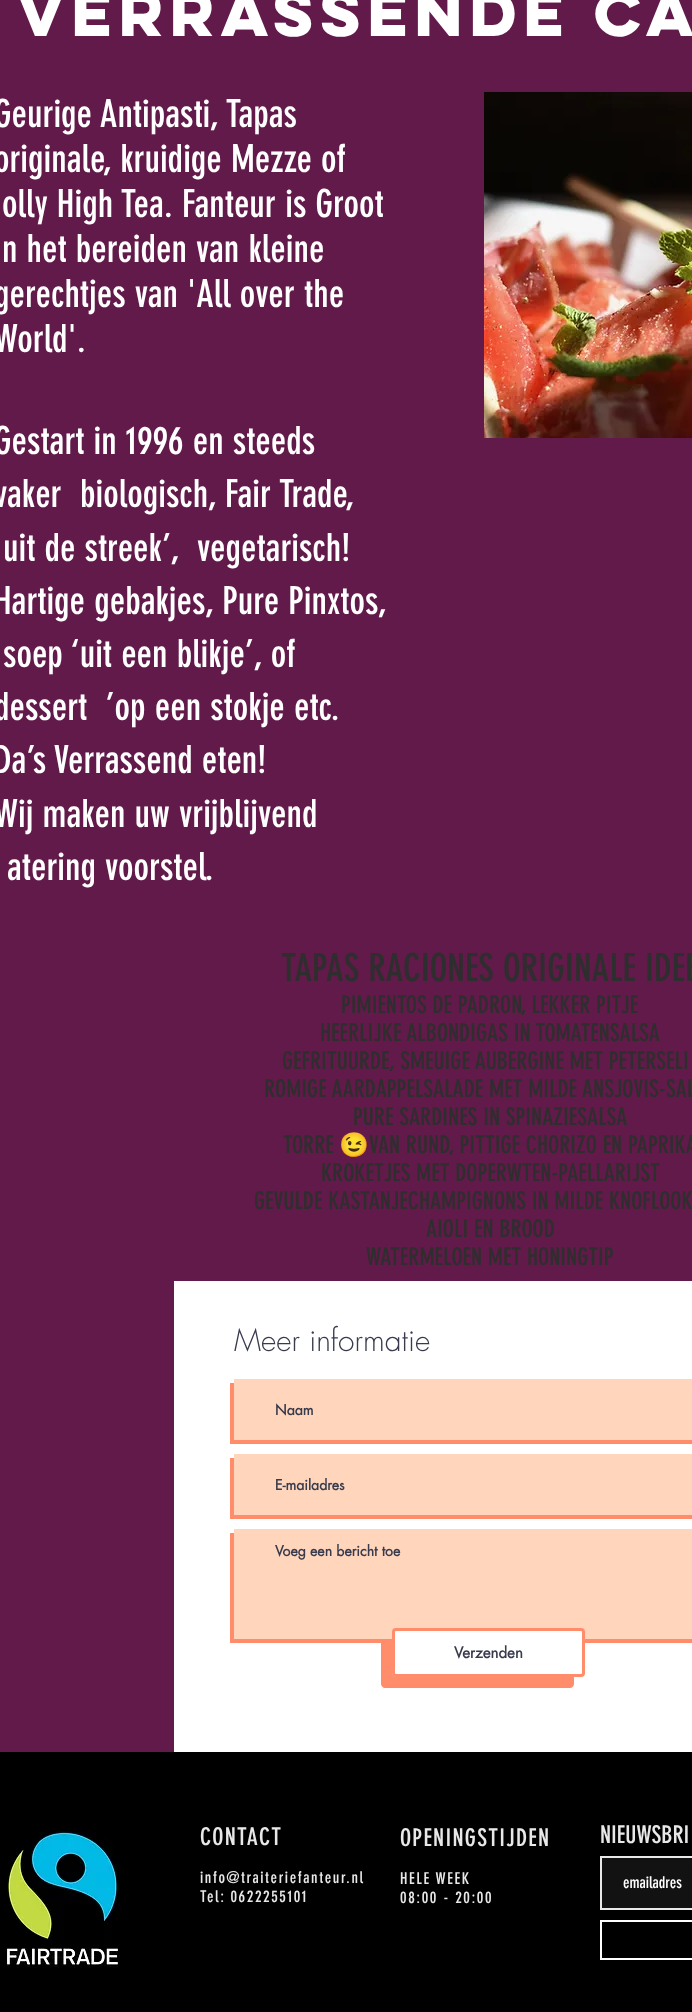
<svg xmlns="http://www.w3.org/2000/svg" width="692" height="2012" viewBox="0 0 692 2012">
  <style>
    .t1 { font: bold 57px 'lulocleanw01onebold'; letter-spacing: -5.75px; fill: #fff; }
    .t2 { font: 38px 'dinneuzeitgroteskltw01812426'; fill: #fff; }
    .t3 { font: 38px 'dinneuzeitgroteskltw01812426'; fill: #2f2e2e; }
    .t4 { font: 24px 'dinneuzeitgroteskltw01812426'; fill: #2f2e2e; }
    .t5 { font: 24px Noto Color Emoji; fill: #2f2e2e; }
    .t6 { font: 300 30px futura; fill: #373b4d; }
    .t7 { font: bold 14px futura; fill: #373b4d; }
    .t8 { font: bold 15px futura; fill: #373b4d; }
    .t9 { font: 24px 'dinneuzeitgroteskltw01812426'; letter-spacing: 1.25px; fill: #e8e8e8; }
    .t10 { font: 16px 'dinneuzeitgroteskltw01812426'; letter-spacing: 1.6px; fill: #e8e8e8; }
    .t11 { font: 24px 'dinneuzeitgroteskltw01812426'; fill: #e8e8e8; }
    .t12 { font: 16px 'dinneuzeitgroteskltw01812426'; fill: #fff; }
  </style>
  <rect width="100%" height="100%" fill="#621a4a"/>
  <text x="17" y="36" class="t1">VERRASSENDE CA</text>
  <text x="-6" y="127" class="t2">Geurige Antipasti, Tapas</text>
  <text x="-6" y="172" class="t2">originale, kruidige Mezze of</text>
  <text x="2" y="217" class="t2">olly High Tea. Fanteur is Groot</text>
  <text x="2" y="262" class="t2">n het bereiden van kleine</text>
  <text x="-6" y="307" class="t2">gerechtjes van 'All over the</text>
  <text x="-6" y="352" class="t2">World'.</text>
  <text x="-6" y="454" class="t2">Gestart in 1996 en steeds</text>
  <text x="-6" y="507" class="t2" xml:space="preserve">vaker  biologisch, Fair Trade,</text>
  <text x="3" y="561" class="t2" xml:space="preserve">uit de streek’,  vegetarisch!</text>
  <text x="-6" y="614" class="t2">Hartige gebakjes, Pure Pinxtos,</text>
  <text x="3" y="667" class="t2">soep ‘uit een blikje’, of</text>
  <text x="-6" y="720" class="t2" xml:space="preserve">dessert  ’op een stokje etc.</text>
  <text x="-6" y="773" class="t2">Da’s Verrassend eten!</text>
  <text x="-6" y="827" class="t2">Wij maken uw vrijblijvend</text>
  <text x="7" y="880" class="t2">atering voorstel.</text>
  <image x="484" y="92" width="208" height="346" href="images/1.png"/>
  <text x="281" y="981" class="t3">TAPAS RACIONES ORIGINALE IDEE</text>
  <text x="341" y="1013" class="t4">PIMIENTOS DE PADRON, LEKKER PITJE</text>
  <text x="320" y="1041" class="t4">HEERLIJKE ALBONDIGAS IN TOMATENSALSA</text>
  <text x="282" y="1069" class="t4">GEFRITUURDE, SMEUIGE AUBERGINE MET PETERSELI</text>
  <text x="264" y="1097" class="t4">ROMIGE AARDAPPELSALADE MET MILDE ANSJOVIS-SAL</text>
  <text x="353" y="1125" class="t4">PURE SARDINES IN SPINAZIESALSA</text>
  <text x="283" y="1153" class="t4">TORRE</text>
  <text x="339" y="1153" class="t5">😉</text>
  <text x="369" y="1153" class="t4">VAN RUND, PITTIGE CHORIZO EN PAPRIKA</text>
  <text x="321" y="1181" class="t4">KROKETJES MET DOPERWTEN-PAELLARIJST</text>
  <text x="254" y="1209" class="t4">GEVULDE KASTANJECHAMPIGNONS IN MILDE KNOFLOOK</text>
  <text x="426" y="1237" class="t4">AIOLI EN BROOD</text>
  <text x="366" y="1265" class="t4">WATERMELOEN MET HONINGTIP</text>
  <rect x="174" y="1281" width="518" height="471" fill="#fff"/>
  <text x="234" y="1351" class="t6">Meer informatie</text>
  <path d="M230 1383V1444H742V1440H234V1383Z" fill="#ff8c6b"/>
  <rect x="234" y="1379" width="458" height="61" fill="#ffd5bb"/>
  <text x="275" y="1415" class="t7">Naam</text>
  <path d="M230 1458V1519H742V1515H234V1458Z" fill="#ff8c6b"/>
  <rect x="234" y="1454" width="458" height="61" fill="#ffd5bb"/>
  <text x="275" y="1490" class="t7">E-mailadres</text>
  <path d="M230 1533V1643H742V1639H234V1533Z" fill="#ff8c6b"/>
  <rect x="234" y="1529" width="458" height="110" fill="#ffd5bb"/>
  <text x="275" y="1556" class="t7">Voeg een bericht toe</text>
  <path d="M385 1639C383 1639 381 1641 381 1643V1684C381 1686 383 1688 385 1688H570C572 1688 574 1686 574 1684V1677H396C394 1677 392 1675 392 1673V1639Z" fill="#ff8c6b"/>
  <rect x="393.5" y="1629.5" width="190" height="46" rx="2.5" fill="#fff" stroke="#ff8c6b" stroke-width="3"/>
  <text x="454" y="1658" class="t8">Verzenden</text>
  <rect x="0" y="1752" width="692" height="260" fill="#000"/>
  <image x="4" y="1831" width="116" height="137" href="images/2.png"/>
  <text x="200" y="1845" class="t9">CONTACT</text>
  <text x="200" y="1883" class="t10">info@traiteriefanteur.nl</text>
  <text x="200" y="1902" class="t10">Tel: 0622255101</text>
  <text x="400" y="1846" class="t9">OPENINGSTIJDEN</text>
  <text x="400" y="1884" class="t10">HELE WEEK</text>
  <text x="400" y="1903" class="t10">08:00 - 20:00</text>
  <text x="600" y="1843" class="t11">NIEUWSBRI</text>
  <rect x="601" y="1857" width="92" height="52" fill="#121212" stroke="#e8e8e8" stroke-width="2"/>
  <text x="623" y="1888" class="t12">emailadres</text>
  <rect x="601" y="1921" width="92" height="38" fill="none" stroke="#fff" stroke-width="2"/>
</svg>
